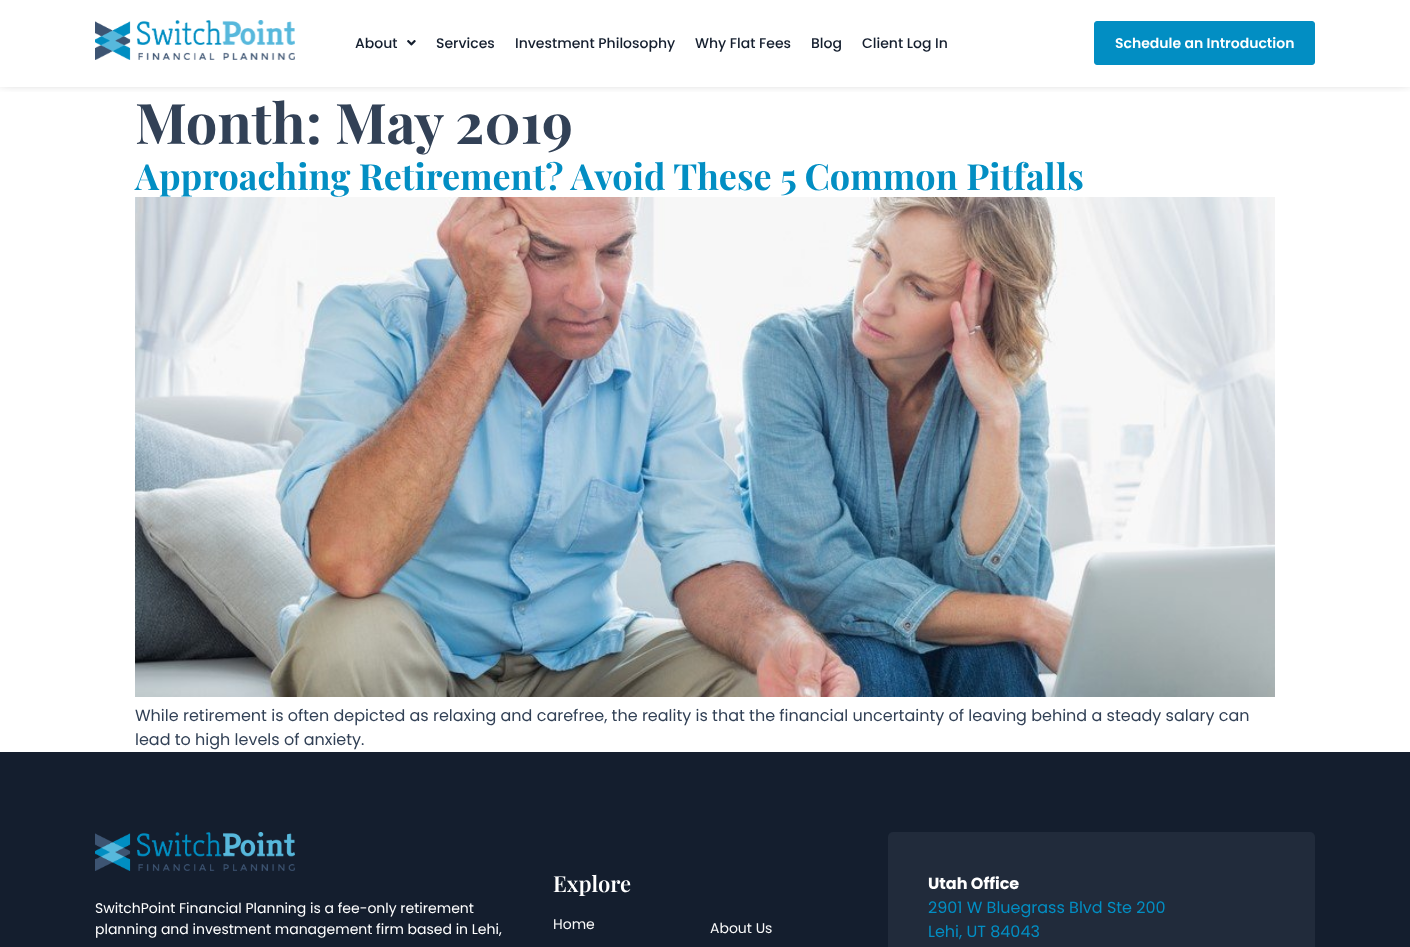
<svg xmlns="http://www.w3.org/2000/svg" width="1410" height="947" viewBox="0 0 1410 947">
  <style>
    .t1 { font: 500 14px Poppins; fill: #141e2e; }
    .t2 { font: 600 14px Poppins; fill: #fff; }
    .t3 { font: bold 56px Playfair Display; fill: #324156; }
    .t4 { font: bold 36px Playfair Display; fill: #028ec3; }
    .t5 { font: 16px Poppins; fill: #324156; }
    .t6 { font: 14px Poppins; fill: #fff; }
    .t7 { font: 600 22px Playfair Display; fill: #fff; }
    .t8 { font: 14px Poppins; fill: #f9f9f9; }
    .t9 { font: bold 16px Poppins; fill: #fff; }
    .t10 { font: 16px Poppins; fill: #028ec3; }
  </style>
  <defs>
    <clipPath id="clip1"><rect x="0" y="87" width="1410" height="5"/></clipPath>
  </defs>
  <rect width="100%" height="100%" fill="#fff"/>
  <g clip-path="url(#clip1)">
    <rect x="0" y="-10" width="1410" height="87" fill="#333" filter="blur(7.5px)"/>
  </g>
  <image x="95" y="20" width="200" height="40" href="images/1.png"/>
  <text x="355" y="48" class="t1">About</text>
  <image x="407" y="40" width="9" height="6" href="images/2.png"/>
  <text x="436" y="48" class="t1">Services</text>
  <text x="515" y="48" class="t1">Investment Philosophy</text>
  <text x="695" y="48" class="t1">Why Flat Fees</text>
  <text x="811" y="48" class="t1">Blog</text>
  <text x="862" y="48" class="t1">Client Log In</text>
  <rect x="1094.5" y="21.5" width="220" height="43" rx="2.5" fill="#028ec3" stroke="#028ec3"/>
  <text x="1115" y="48" class="t2">Schedule an Introduction</text>
  <text x="135" y="144" class="t3">Month: May 2019</text>
  <text x="135" y="190" class="t4">Approaching Retirement? Avoid These 5 Common Pitfalls</text>
  <image x="135" y="197" width="1140" height="500" href="images/3.png"/>
  <text x="135" y="721" class="t5">While retirement is often depicted as relaxing and carefree, the reality is that the financial uncertainty of leaving behind a steady salary can</text>
  <text x="135" y="745" class="t5">lead to high levels of anxiety.</text>
  <rect x="0" y="752" width="1410" height="195" fill="#141e2e"/>
  <image x="95" y="832" width="200" height="39" href="images/4.png"/>
  <text x="95" y="913" class="t6">SwitchPoint Financial Planning is a fee-only retirement</text>
  <text x="95" y="934" class="t6">planning and investment management firm based in Lehi,</text>
  <text x="553" y="892" class="t7">Explore</text>
  <text x="553" y="929" class="t8">Home</text>
  <text x="710" y="933" class="t8">About Us</text>
  <rect x="888" y="832" width="427" height="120" rx="5" fill="#212b3b"/>
  <text x="928" y="889" class="t9">Utah Office</text>
  <text x="928" y="913" class="t10">2901 W Bluegrass Blvd Ste 200</text>
  <text x="928" y="937" class="t10">Lehi, UT 84043</text>
</svg>
